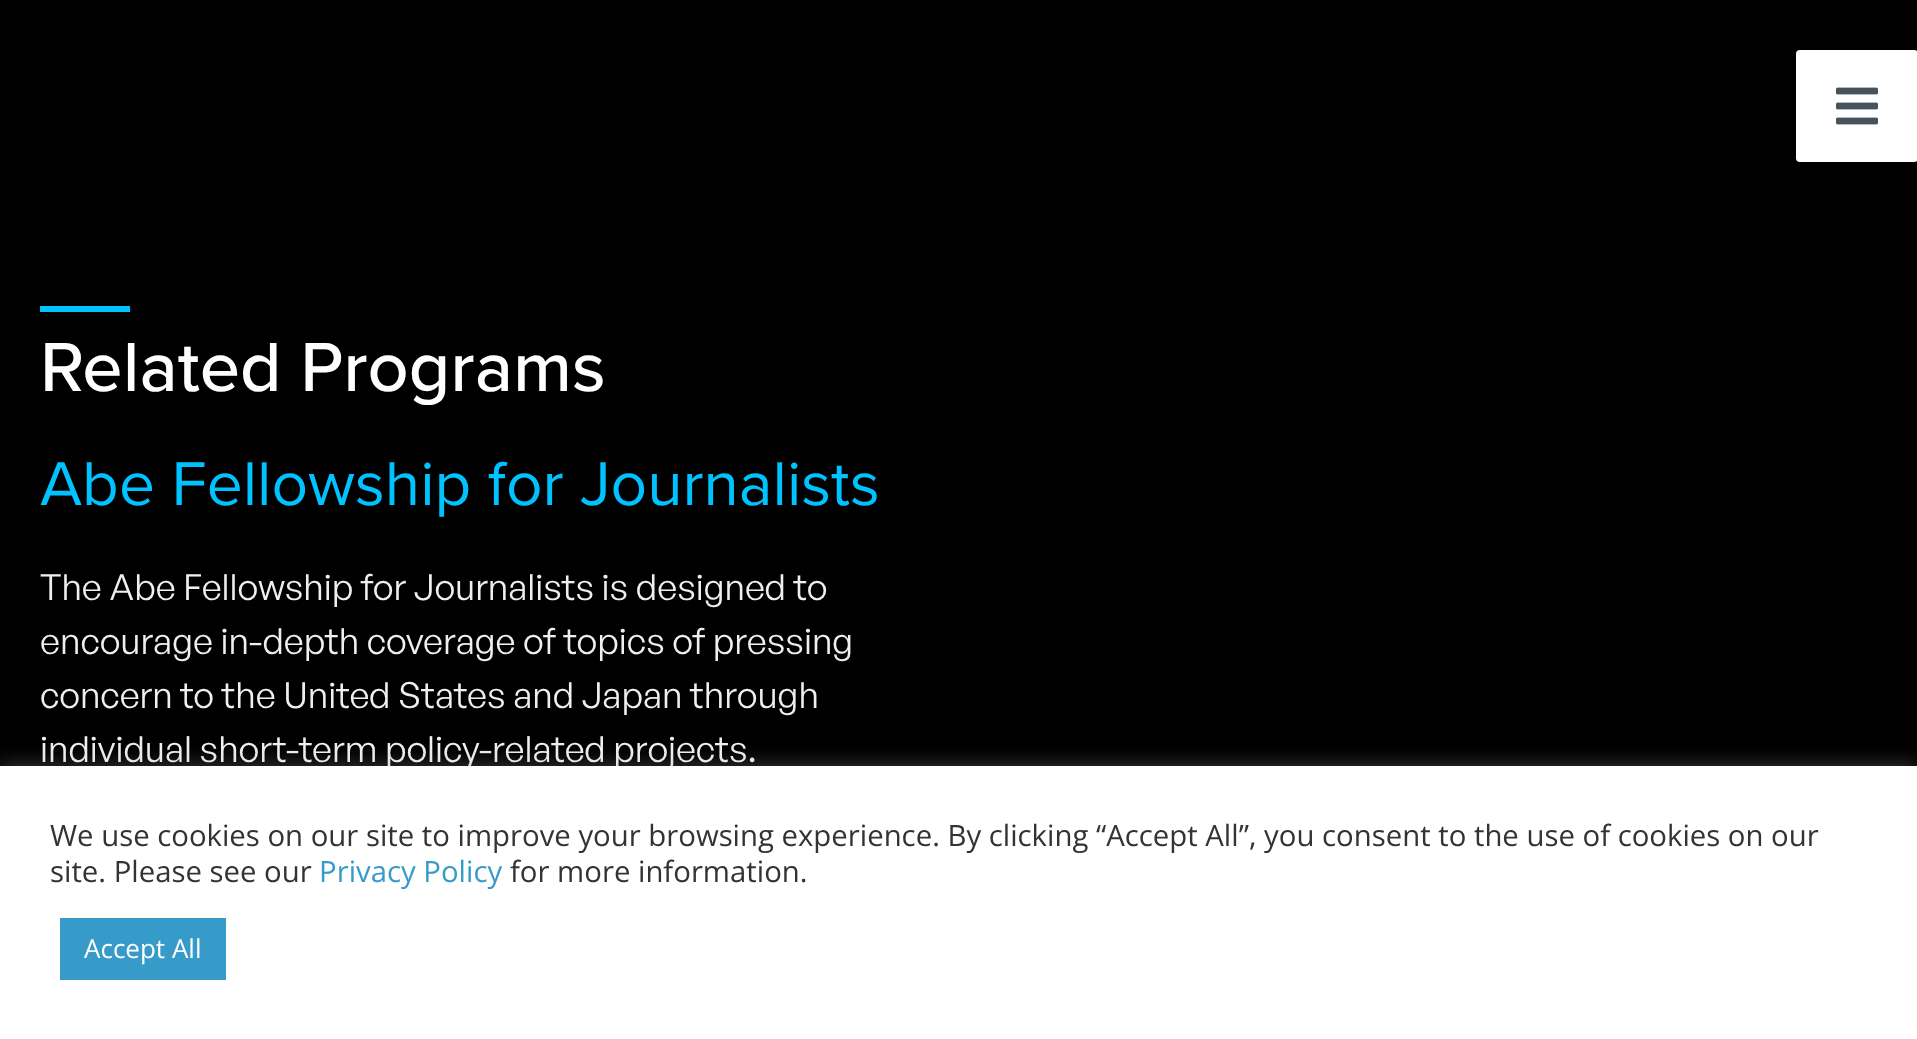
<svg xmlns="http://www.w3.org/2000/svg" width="1917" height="1039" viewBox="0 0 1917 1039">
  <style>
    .t1 { font: 500 72px Proxima Nova; fill: #fff; }
    .t2 { font: 64px Proxima Nova; fill: #00c2ff; }
    .t3 { font: 36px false; fill: #efefef; }
    .t4 { font: 29.33px Open Sans; fill: #333; }
    .t5 { font: 29.33px Open Sans; fill: #379bc9; }
    .t6 { font: 26px Open Sans; fill: #fff; }
  </style>
  <rect width="100%" height="100%" fill="#000"/>
  <rect x="1796" y="50" width="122" height="112" rx="4" fill="#fff"/>
  <image x="1836" y="87" width="42" height="38" href="images/1.png"/>
  <rect x="40" y="306" width="90" height="6" fill="#00c2ff"/>
  <text x="40" y="391" class="t1">Related Programs</text>
  <text x="40" y="505" class="t2">Abe Fellowship for Journalists</text>
  <text x="40" y="600" class="t3">The Abe Fellowship for Journalists is designed to</text>
  <text x="40" y="654" class="t3">encourage in-depth coverage of topics of pressing</text>
  <text x="40" y="708" class="t3">concern to the United States and Japan through</text>
  <text x="40" y="762" class="t3">individual short-term policy-related projects.</text>
  <rect x="0" y="764" width="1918" height="274" fill="#acabab4d" filter="blur(10px)"/>
  <rect x="0" y="766" width="1917" height="273" fill="#fff"/>
  <text x="50" y="846" class="t4">We use cookies on our site to improve your browsing experience. By clicking “Accept All”, you consent to the use of cookies on our</text>
  <text x="50" y="882" class="t4">site. Please see our</text>
  <text x="319" y="882" class="t5">Privacy Policy</text>
  <text x="510" y="882" class="t4">for more information.</text>
  <rect x="60" y="918" width="166" height="62" fill="#379bc9"/>
  <text x="84" y="958" class="t6">Accept All</text>
</svg>
